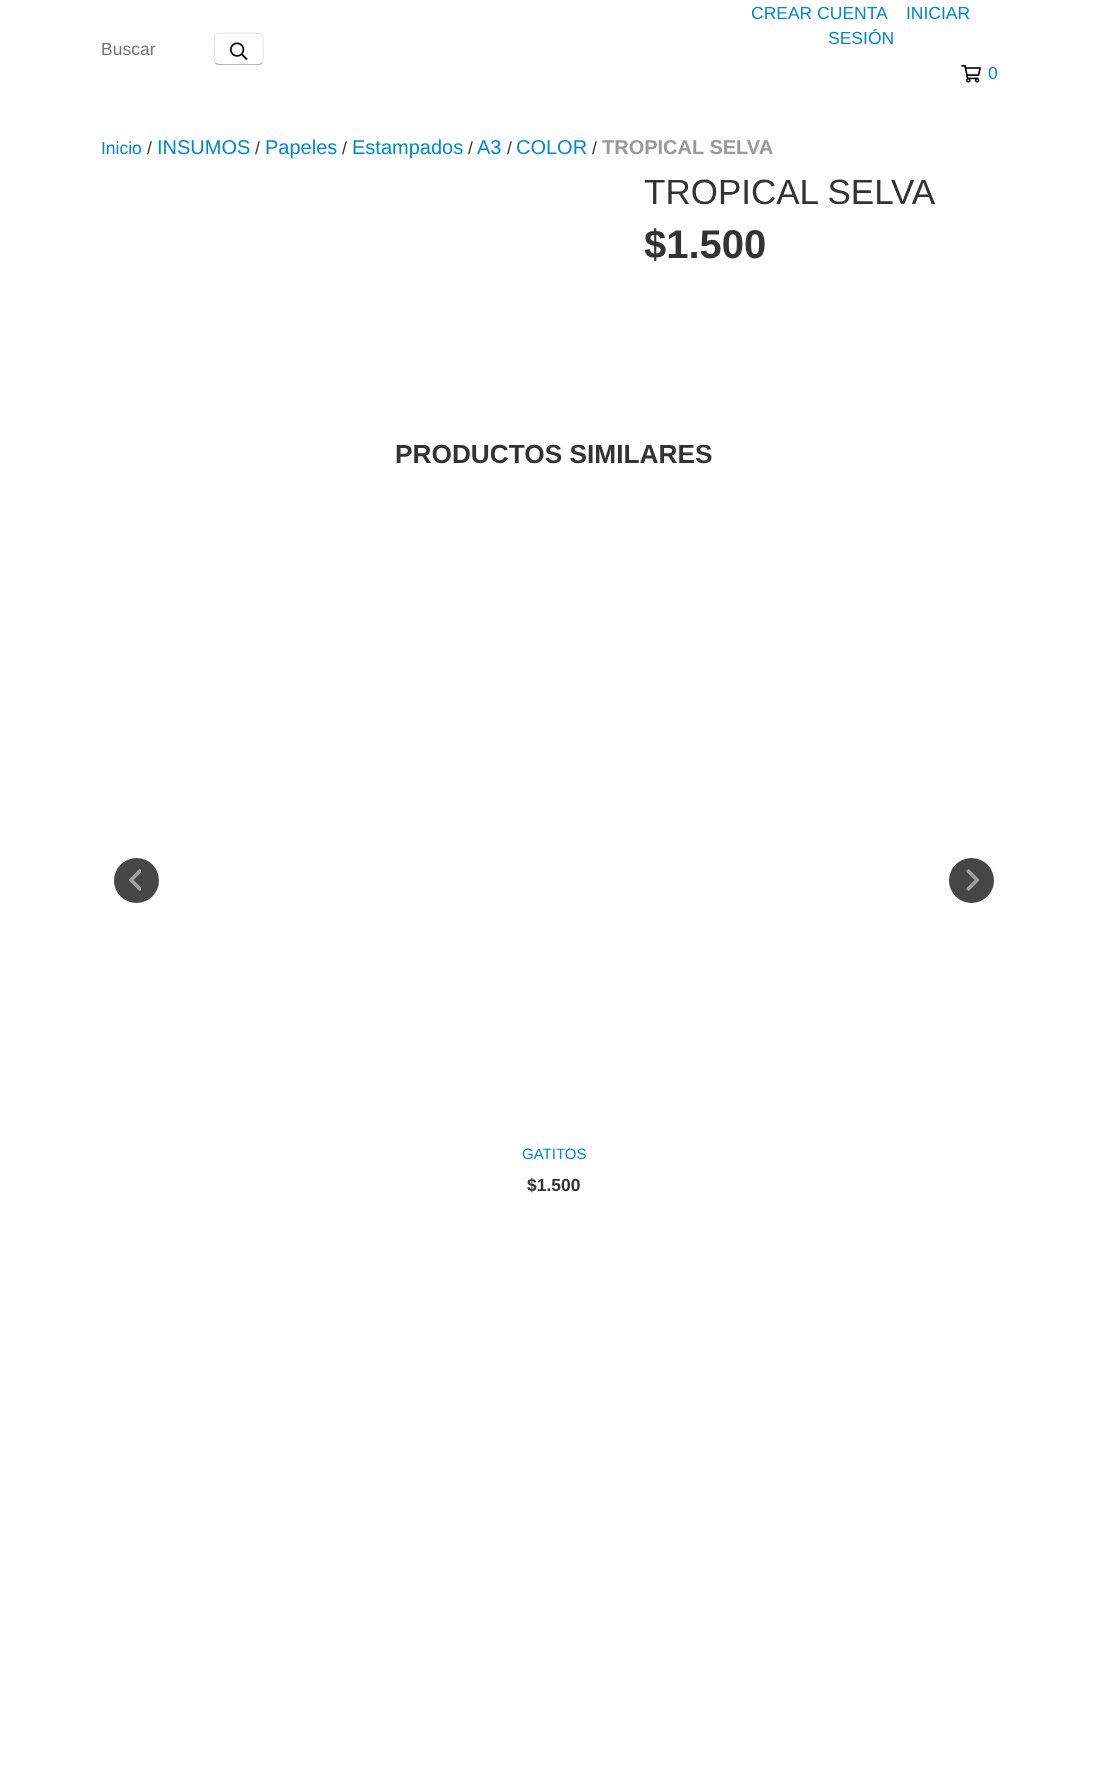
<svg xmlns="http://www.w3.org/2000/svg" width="1107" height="1792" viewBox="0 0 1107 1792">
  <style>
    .t1 { font: 17.5px Liberation Sans; fill: #757575; }
    .t2 { font: 17.5px Liberation Sans; fill: #08c; }
    .t3 { font: 17.5px Liberation Sans; letter-spacing: 1px; fill: #08c; }
    .t4 { font: 17.5px Liberation Sans; fill: #333; }
    .t5 { font: 20px Liberation Sans; fill: #08c; }
    .t6 { font: bold 20px Liberation Sans; fill: #999; }
    .t7 { font: 35px Liberation Sans; fill: #333; }
    .t8 { font: bold 40px Liberation Sans; fill: #333; }
    .t9 { font: bold 26.25px Liberation Sans; fill: #333; }
    .t10 { font: 15px Liberation Sans; fill: #08c; }
    .t11 { font: bold 17.5px Liberation Sans; fill: #333; }
  </style>
  <rect width="100%" height="100%" fill="#fff"/>
  <text x="101" y="55" class="t1">Buscar</text>
  <path d="M262 63C261 64 260 64.5 259 64.5H219C217.5 64.5 216.5 64 215.5 63" fill="none" stroke="#b3b3b3" stroke-width="1.2"/>
  <path d="M215.5 63C213 60.5 214.5 52 214.5 49C214.5 34.5 211.5 33 225.5 33H252C266 33 263 34.5 263 49C263 52 264.5 60.5 262 63" fill="none" stroke="#0000001a" stroke-width="1.2"/>
  <image x="230" y="42" width="18" height="18" href="images/1.png"/>
  <text x="751" y="19" class="t2">CREAR CUENTA</text>
  <text x="906" y="19" class="t2">INICIAR</text>
  <text x="828" y="44" class="t2">SESIÓN</text>
  <image x="961" y="65" width="20" height="18" href="images/2.png"/>
  <text x="988" y="79" class="t3">0</text>
  <text x="101" y="154" class="t2">Inicio</text>
  <text x="147" y="154" class="t4">/</text>
  <text x="157" y="154" class="t5">INSUMOS</text>
  <text x="255" y="154" class="t4">/</text>
  <text x="265" y="154" class="t5">Papeles</text>
  <text x="342" y="154" class="t4">/</text>
  <text x="352" y="154" class="t5">Estampados</text>
  <text x="468" y="154" class="t4">/</text>
  <text x="477" y="154" class="t5">A3</text>
  <text x="507" y="154" class="t4">/</text>
  <text x="516" y="154" class="t5">COLOR</text>
  <text x="592" y="154" class="t4">/</text>
  <text x="602" y="154" class="t6">TROPICAL SELVA</text>
  <text x="644" y="204" class="t7">TROPICAL SELVA</text>
  <text x="644" y="258" class="t8">$1.500</text>
  <text x="395" y="463" class="t9">PRODUCTOS SIMILARES</text>
  <circle cx="136.5" cy="880.5" r="22.5" fill="#464646"/>
  <image x="129" y="869" width="12" height="22" href="images/3.png"/>
  <circle cx="971.5" cy="880.5" r="22.5" fill="#464646"/>
  <image x="966" y="869" width="13" height="22" href="images/4.png"/>
  <text x="522" y="1159" class="t10">GATITOS</text>
  <text x="527" y="1191" class="t11">$1.500</text>
</svg>
